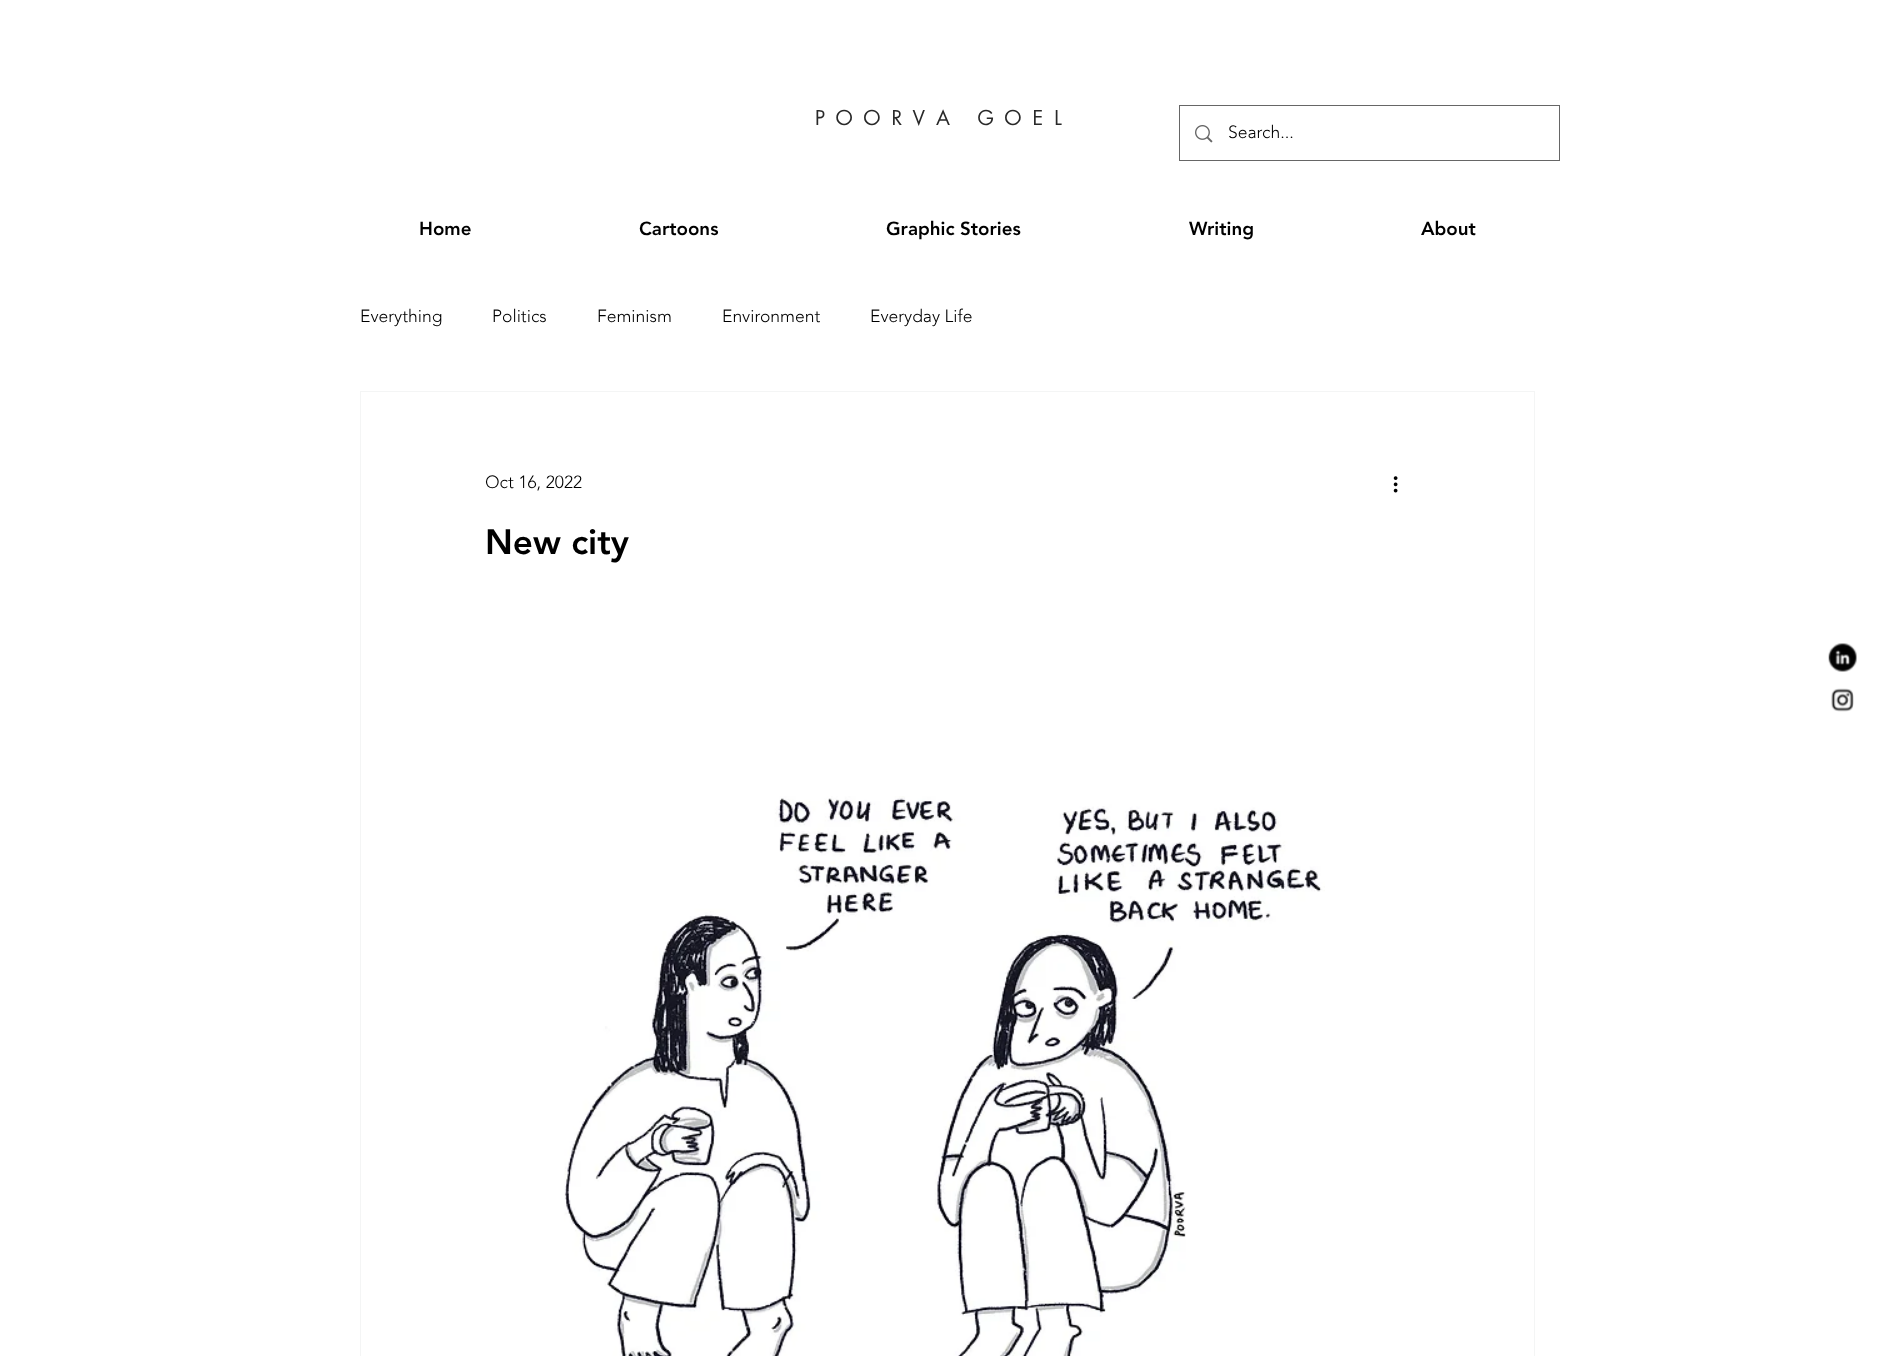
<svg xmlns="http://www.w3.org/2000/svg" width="1894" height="1356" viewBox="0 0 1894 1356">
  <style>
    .t1 { font: 20px futura; letter-spacing: 2.4px; fill: #292929; }
    .t2 { font: 300 17.5px 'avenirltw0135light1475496'; fill: #000; }
    .t3 { font: 900 18.75px 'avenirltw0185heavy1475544'; fill: #000; }
    .t4 { font: 900 35px 'avenirltw0185heavy1475544'; fill: #000; }
  </style>
  <rect width="100%" height="100%" fill="#fff"/>
  <text x="815" y="125" class="t1" xml:space="preserve">P O O R V A   G O E L</text>
  <rect x="1179.5" y="105.5" width="380" height="55" fill="none" stroke="#666"/>
  <image x="1195" y="125" width="18" height="18" href="images/1.png"/>
  <text x="1228" y="138" class="t2">Search...</text>
  <text x="419" y="235" class="t3">Home</text>
  <text x="639" y="235" class="t3">Cartoons</text>
  <text x="886" y="235" class="t3">Graphic Stories</text>
  <text x="1189" y="235" class="t3">Writing</text>
  <text x="1421" y="235" class="t3">About</text>
  <text x="360" y="322" class="t2">Everything</text>
  <text x="492" y="322" class="t2">Politics</text>
  <text x="597" y="322" class="t2">Feminism</text>
  <text x="722" y="322" class="t2">Environment</text>
  <text x="870" y="322" class="t2">Everyday Life</text>
  <rect x="360.5" y="391.5" width="1174" height="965" fill="none" stroke="#f4f5f5"/>
  <text x="485" y="488" class="t2">Oct 16, 2022</text>
  <image x="1393" y="476" width="5" height="17" href="images/2.png"/>
  <text x="485" y="554" class="t4">New city</text>
  <image x="564" y="796" width="761" height="560" href="images/3.png"/>
  <image x="1828" y="643" width="29" height="29" href="images/4.png"/>
  <image x="1831" y="688" width="23" height="24" href="images/5.png"/>
</svg>
